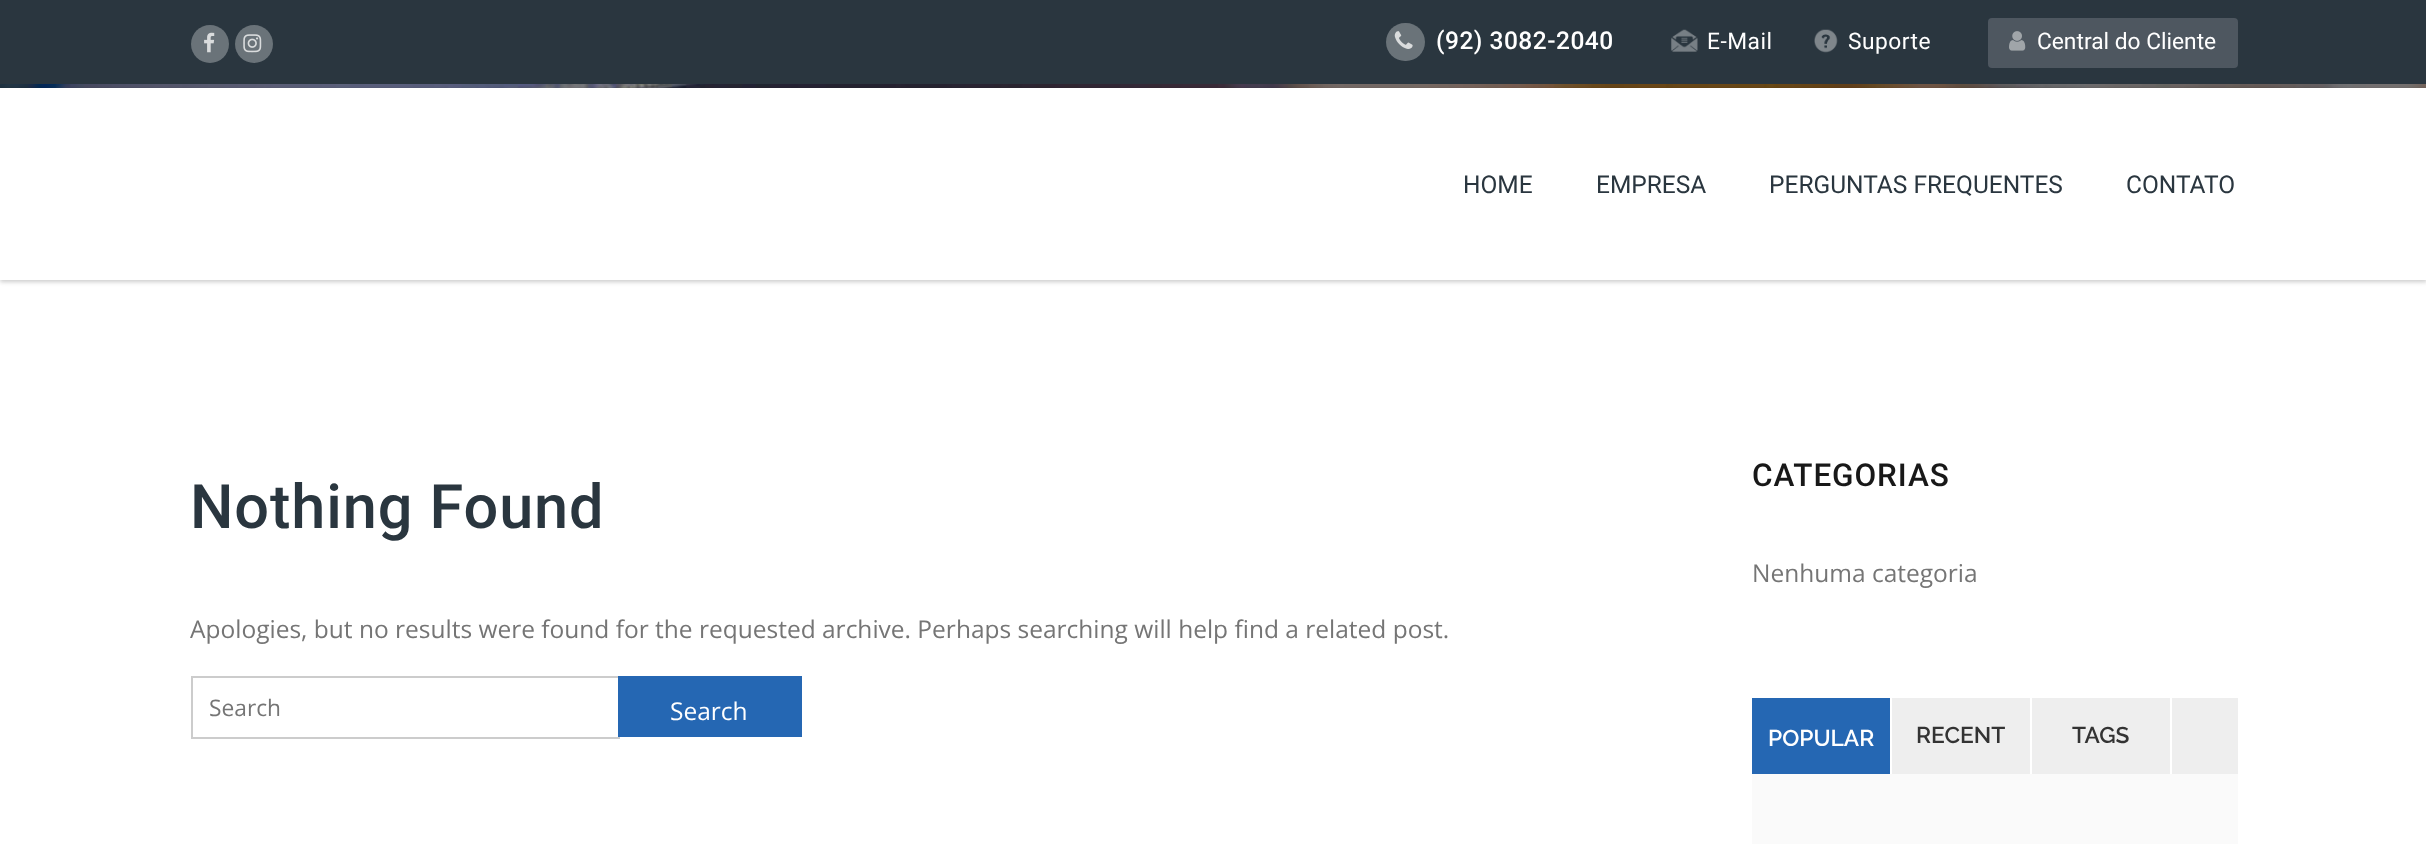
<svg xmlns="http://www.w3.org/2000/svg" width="2426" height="866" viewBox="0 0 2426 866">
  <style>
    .t1 { font: 500 24.5px Roboto; letter-spacing: 0.5px; fill: #fff; }
    .t2 { font: 22.75px Roboto; letter-spacing: 0.5px; fill: #fff; }
    .t3 { font: 22.75px Roboto; fill: #fff; }
    .t4 { font: 24.5px Roboto; fill: #2a363f; }
    .t5 { font: 500 61.25px Roboto; letter-spacing: 0.9px; fill: #2a363f; }
    .t6 { font: 24.5px Open Sans; fill: #757575; }
    .t7 { font: 22.75px Open Sans; fill: #757575; }
    .t8 { font: 24.5px Open Sans; fill: #fff; }
    .t9 { font: 500 31.5px Roboto; letter-spacing: 0.9px; fill: #181818; }
    .t10 { font: 600 22.75px Raleway; fill: #fff; }
    .t11 { font: 600 22.75px Raleway; fill: #333; }
  </style>
  <rect width="100%" height="100%" fill="#fff"/>
  <image x="0" y="84" width="2426" height="4" href="images/1.png"/>
  <rect x="0" y="0" width="2426" height="84" fill="#2a363f"/>
  <circle cx="210" cy="44" r="19" fill="#6a7379"/>
  <image x="204" y="32" width="11" height="21" href="images/2.png"/>
  <circle cx="254" cy="44" r="19" fill="#6a7379"/>
  <image x="243" y="34" width="19" height="19" href="images/3.png"/>
  <rect x="1386" y="23" width="39" height="38" rx="19" fill="#6a7379"/>
  <image x="1394" y="31" width="19" height="18" href="images/4.png"/>
  <text x="1436" y="49" class="t1">(92) 3082-2040</text>
  <image x="1671" y="29" width="27" height="23" href="images/5.png"/>
  <text x="1707" y="49" class="t2">E-Mail</text>
  <image x="1814" y="29" width="24" height="24" href="images/6.png"/>
  <text x="1848" y="49" class="t2">Suporte</text>
  <rect x="1988" y="18" width="250" height="50" rx="4" fill="#4e5760"/>
  <image x="2009" y="31" width="17" height="20" href="images/7.png"/>
  <text x="2037" y="49" class="t3">Central do Cliente</text>
  <rect x="0" y="89" width="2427" height="193" fill="#00000033" filter="blur(2px)"/>
  <rect x="0" y="88" width="2426" height="192" fill="#fff"/>
  <text x="1463" y="193" class="t4">HOME</text>
  <text x="1596" y="193" class="t4">EMPRESA</text>
  <text x="1769" y="193" class="t4">PERGUNTAS FREQUENTES</text>
  <text x="2126" y="193" class="t4">CONTATO</text>
  <text x="190" y="528" class="t5">Nothing Found</text>
  <text x="190" y="638" class="t6">Apologies, but no results were found for the requested archive. Perhaps searching will help find a related post.</text>
  <rect x="192" y="677" width="427" height="61" fill="none" stroke="#ccc" stroke-width="2"/>
  <text x="209" y="716" class="t7">Search</text>
  <rect x="618" y="676" width="184" height="61" fill="#2567b3"/>
  <text x="670" y="720" class="t8">Search</text>
  <text x="1752" y="486" class="t9">CATEGORIAS</text>
  <text x="1752" y="582" class="t6">Nenhuma categoria</text>
  <rect x="1892" y="698" width="346" height="76" fill="#eee"/>
  <rect x="1752" y="698" width="138" height="76" fill="#2567b3"/>
  <text x="1768" y="746" class="t10">POPULAR</text>
  <rect x="2030" y="698" width="2" height="76" fill="#fff"/>
  <text x="1916" y="743" class="t11">RECENT</text>
  <rect x="2170" y="698" width="2" height="76" fill="#fff"/>
  <text x="2072" y="743" class="t11">TAGS</text>
  <rect x="1752" y="774" width="486" height="70" fill="#fafafa"/>
</svg>
